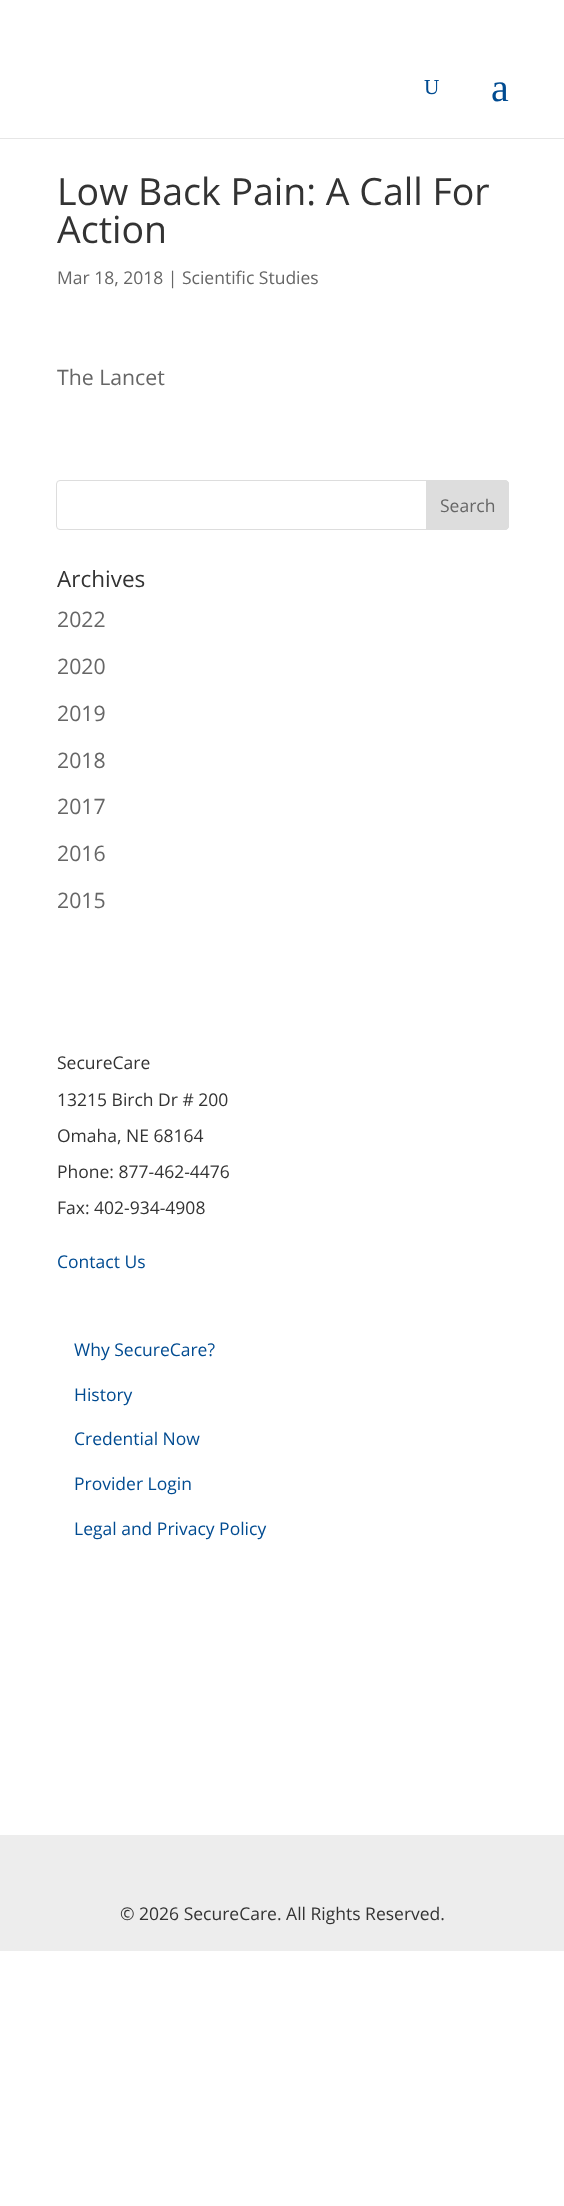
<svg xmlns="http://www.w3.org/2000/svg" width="564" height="2206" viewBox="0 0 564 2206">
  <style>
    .t1 { font: 21.25px Liberation Serif; fill: #004b91; }
    .t2 { font: 40px Liberation Serif; fill: #004b91; }
    .t3 { font: 37.5px Open Sans; fill: #333; }
    .t4 { font: 17.5px Open Sans; fill: #666; }
    .t5 { font: 21.25px Open Sans; fill: #666; }
    .t6 { font: 22.5px Open Sans; fill: #333; }
    .t7 { font: 17.5px Open Sans; fill: #333; }
    .t8 { font: 17.5px Open Sans; fill: #004b91; }
  </style>
  <rect width="100%" height="100%" fill="#fff"/>
  <rect x="0" y="138" width="564" height="1" fill="#e6e6e6"/>
  <text x="424" y="94" class="t1">U</text>
  <text x="491" y="101" class="t2">a</text>
  <text x="57" y="205" class="t3">Low Back Pain: A Call For</text>
  <text x="57" y="243" class="t3">Action</text>
  <text x="57" y="284" class="t4">Mar 18, 2018 | Scientific Studies</text>
  <text x="57" y="385" class="t5">The Lancet</text>
  <rect x="56.5" y="480.5" width="452" height="49" rx="3.5" fill="none" stroke="#ddd"/>
  <path d="M426.5 480.5H505C507 480.5 508.5 482 508.5 484V526C508.5 528 507 529.5 505 529.5H426.5Z" fill="#ddd" stroke="#ddd"/>
  <text x="440" y="512" class="t4">Search</text>
  <text x="57" y="587" class="t6">Archives</text>
  <text x="57" y="627" class="t5">2022</text>
  <text x="57" y="674" class="t5">2020</text>
  <text x="57" y="721" class="t5">2019</text>
  <text x="57" y="768" class="t5">2018</text>
  <text x="57" y="814" class="t5">2017</text>
  <text x="57" y="861" class="t5">2016</text>
  <text x="57" y="908" class="t5">2015</text>
  <text x="57" y="1069" class="t7">SecureCare</text>
  <text x="57" y="1106" class="t7">13215 Birch Dr # 200</text>
  <text x="57" y="1142" class="t7">Omaha, NE 68164</text>
  <text x="57" y="1178" class="t7">Phone: 877-462-4476</text>
  <text x="57" y="1214" class="t7">Fax: 402-934-4908</text>
  <text x="57" y="1268" class="t8">Contact Us</text>
  <text x="74" y="1356" class="t8">Why SecureCare?</text>
  <text x="74" y="1401" class="t8">History</text>
  <text x="74" y="1445" class="t8">Credential Now</text>
  <text x="74" y="1490" class="t8">Provider Login</text>
  <text x="74" y="1535" class="t8">Legal and Privacy Policy</text>
  <rect x="0" y="1835" width="564" height="116" fill="#ededed"/>
  <text x="120" y="1920" class="t7">© 2026 SecureCare. All Rights Reserved.</text>
</svg>
